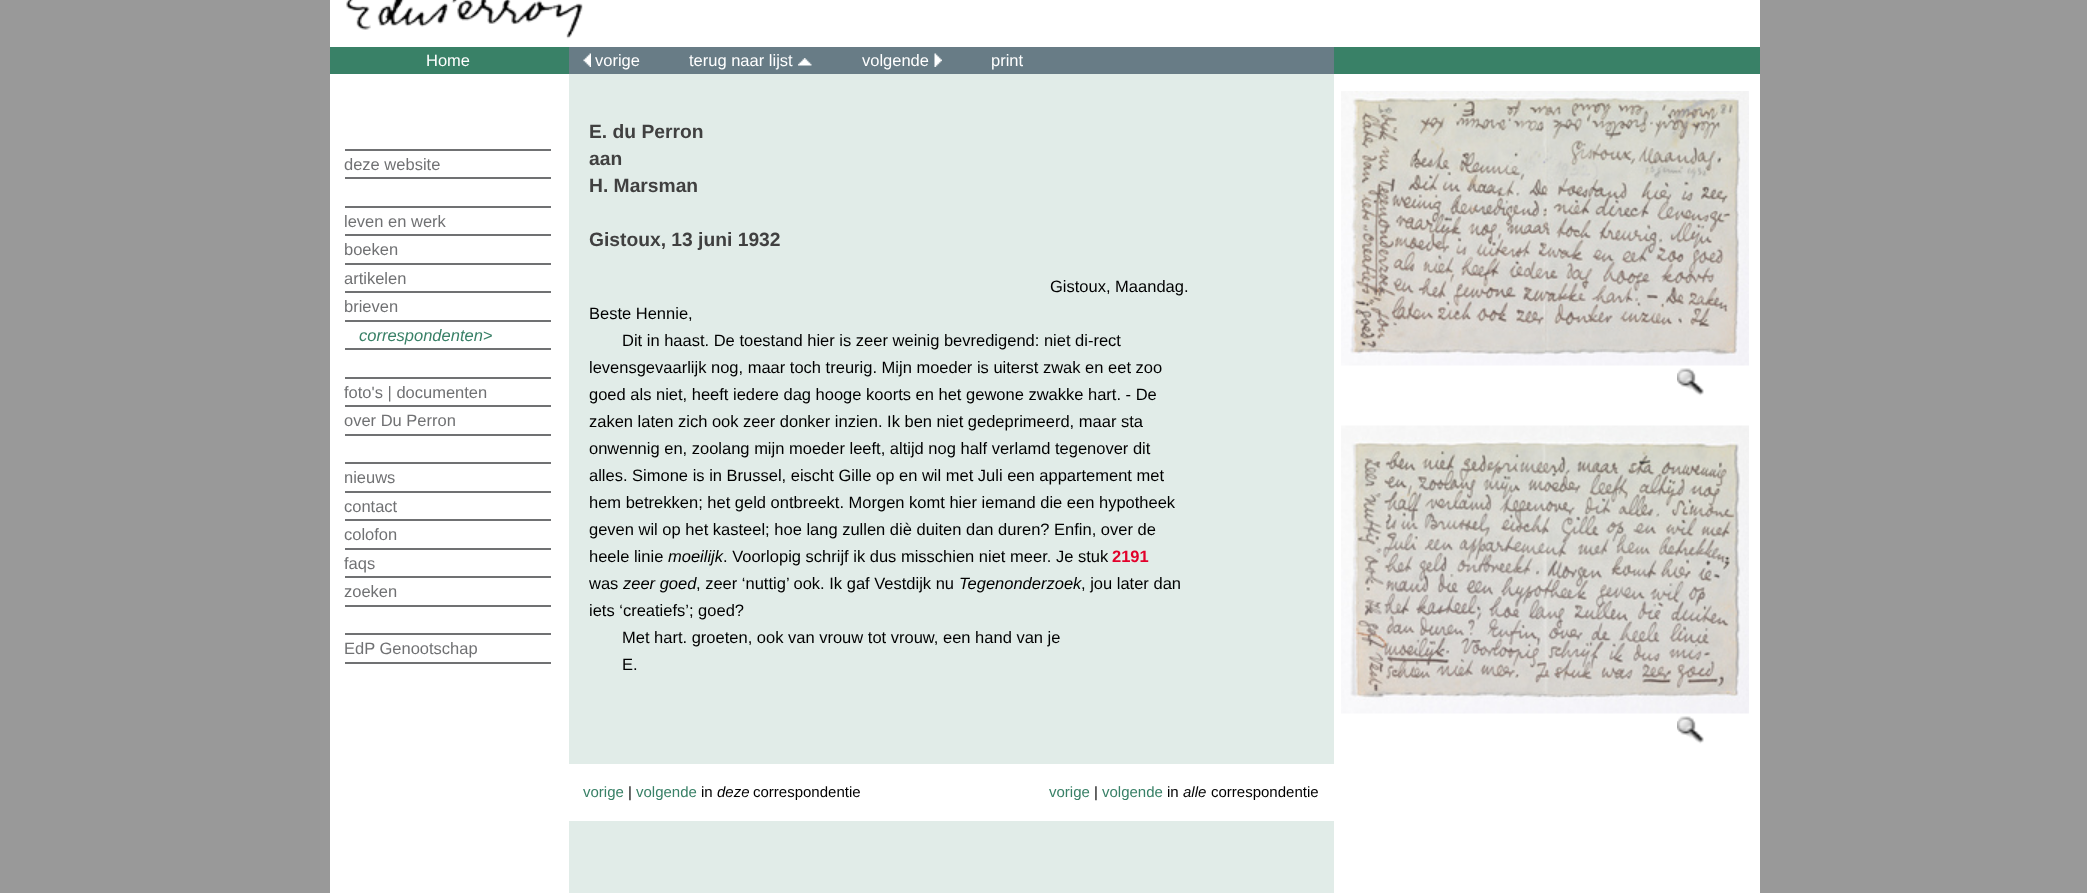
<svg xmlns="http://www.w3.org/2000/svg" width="2087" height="893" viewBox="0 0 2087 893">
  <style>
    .t1 { font: 16.5px Liberation Sans; fill: #fff; }
    .t2 { font: 16.5px Liberation Sans; fill: #707173; }
    .t3 { font: italic 16.5px Liberation Sans; fill: #398167; }
    .t4 { font: bold 19.25px Liberation Sans; fill: #404040; }
    .t5 { font: 16.5px Liberation Sans; fill: #000; }
    .t6 { font: italic 16.5px Liberation Sans; fill: #000; }
    .t7 { font: bold 16.5px Liberation Sans; fill: #e2002a; }
    .t8 { font: 15px Liberation Sans; fill: #398167; }
    .t9 { font: 15px Liberation Sans; fill: #000; }
    .t10 { font: italic 15px Liberation Sans; fill: #000; }
  </style>
  <rect width="100%" height="100%" fill="#999"/>
  <rect x="330" y="0" width="1430" height="893" fill="#fff"/>
  <image x="346" y="0" width="237" height="39" href="images/1.png"/>
  <rect x="330" y="47" width="239" height="27" fill="#398167"/>
  <text x="426" y="66" class="t1">Home</text>
  <rect x="345" y="149" width="206" height="2" fill="#707173"/>
  <text x="344" y="170" class="t2">deze website</text>
  <rect x="345" y="177" width="206" height="2" fill="#707173"/>
  <rect x="345" y="206" width="206" height="2" fill="#707173"/>
  <text x="344" y="227" class="t2">leven en werk</text>
  <rect x="345" y="234" width="206" height="2" fill="#707173"/>
  <text x="344" y="255" class="t2">boeken</text>
  <rect x="345" y="263" width="206" height="2" fill="#707173"/>
  <text x="344" y="284" class="t2">artikelen</text>
  <rect x="345" y="291" width="206" height="2" fill="#707173"/>
  <text x="344" y="312" class="t2">brieven</text>
  <rect x="345" y="320" width="206" height="2" fill="#707173"/>
  <text x="359" y="341" class="t3">correspondenten&gt;</text>
  <rect x="345" y="348" width="206" height="2" fill="#707173"/>
  <rect x="345" y="377" width="206" height="2" fill="#707173"/>
  <text x="344" y="398" class="t2">foto's | documenten</text>
  <rect x="345" y="405" width="206" height="2" fill="#707173"/>
  <text x="344" y="426" class="t2">over Du Perron</text>
  <rect x="345" y="434" width="206" height="2" fill="#707173"/>
  <rect x="345" y="462" width="206" height="2" fill="#707173"/>
  <text x="344" y="483" class="t2">nieuws</text>
  <rect x="345" y="491" width="206" height="2" fill="#707173"/>
  <text x="344" y="512" class="t2">contact</text>
  <rect x="345" y="519" width="206" height="2" fill="#707173"/>
  <text x="344" y="540" class="t2">colofon</text>
  <rect x="345" y="548" width="206" height="2" fill="#707173"/>
  <text x="344" y="569" class="t2">faqs</text>
  <rect x="345" y="576" width="206" height="2" fill="#707173"/>
  <text x="344" y="597" class="t2">zoeken</text>
  <rect x="345" y="605" width="206" height="2" fill="#707173"/>
  <rect x="345" y="633" width="206" height="2" fill="#707173"/>
  <text x="344" y="654" class="t2">EdP Genootschap</text>
  <rect x="345" y="662" width="206" height="2" fill="#707173"/>
  <rect x="569" y="74" width="765" height="819" fill="#e1ece8"/>
  <rect x="569" y="47" width="765" height="27" fill="#687c86"/>
  <image x="583" y="53" width="8" height="14" href="images/2.png"/>
  <text x="595" y="66" class="t1">vorige</text>
  <text x="689" y="66" class="t1">terug naar lijst</text>
  <image x="798" y="58" width="14" height="8" href="images/3.png"/>
  <text x="862" y="66" class="t1">volgende</text>
  <image x="934" y="53" width="8" height="14" href="images/4.png"/>
  <text x="991" y="66" class="t1">print</text>
  <text x="589" y="138" class="t4">E. du Perron</text>
  <text x="589" y="165" class="t4">aan</text>
  <text x="589" y="192" class="t4">H. Marsman</text>
  <text x="589" y="246" class="t4">Gistoux, 13 juni 1932</text>
  <text x="1050" y="292" class="t5">Gistoux, Maandag.</text>
  <text x="589" y="319" class="t5">Beste Hennie,</text>
  <text x="622" y="346" class="t5">Dit in haast. De toestand hier is zeer weinig bevredigend: niet di-rect</text>
  <text x="589" y="373" class="t5">levensgevaarlijk nog, maar toch treurig. Mijn moeder is uiterst zwak en eet zoo</text>
  <text x="589" y="400" class="t5">goed als niet, heeft iedere dag hooge koorts en het gewone zwakke hart. - De</text>
  <text x="589" y="427" class="t5">zaken laten zich ook zeer donker inzien. Ik ben niet gedeprimeerd, maar sta</text>
  <text x="589" y="454" class="t5">onwennig en, zoolang mijn moeder leeft, altijd nog half verlamd tegenover dit</text>
  <text x="589" y="481" class="t5">alles. Simone is in Brussel, eischt Gille op en wil met Juli een appartement met</text>
  <text x="589" y="508" class="t5">hem betrekken; het geld ontbreekt. Morgen komt hier iemand die een hypotheek</text>
  <text x="589" y="535" class="t5">geven wil op het kasteel; hoe lang zullen diè duiten dan duren? Enfin, over de</text>
  <text x="589" y="562" class="t5">heele linie</text>
  <text x="668" y="562" class="t6">moeilijk</text>
  <text x="723" y="562" class="t5">. Voorlopig schrijf ik dus misschien niet meer. Je stuk</text>
  <text x="1112" y="562" class="t7">2191</text>
  <text x="589" y="589" class="t5">was</text>
  <text x="623" y="589" class="t6">zeer goed</text>
  <text x="696" y="589" class="t5">, zeer ‘nuttig’ ook. Ik gaf Vestdijk nu</text>
  <text x="959" y="589" class="t6">Tegenonderzoek</text>
  <text x="1081" y="589" class="t5">, jou later dan</text>
  <text x="589" y="616" class="t5">iets ‘creatiefs’; goed?</text>
  <text x="622" y="643" class="t5">Met hart. groeten, ook van vrouw tot vrouw, een hand van je</text>
  <text x="622" y="670" class="t5">E.</text>
  <rect x="569" y="764" width="765" height="57" fill="#fff"/>
  <text x="583" y="797" class="t8">vorige</text>
  <text x="628" y="797" class="t9">|</text>
  <text x="636" y="797" class="t8">volgende</text>
  <text x="701" y="797" class="t9">in</text>
  <text x="717" y="797" class="t10">deze</text>
  <text x="753" y="797" class="t9">correspondentie</text>
  <text x="1049" y="797" class="t8">vorige</text>
  <text x="1094" y="797" class="t9">|</text>
  <text x="1102" y="797" class="t8">volgende</text>
  <text x="1167" y="797" class="t9">in</text>
  <text x="1183" y="797" class="t10">alle</text>
  <text x="1211" y="797" class="t9">correspondentie</text>
  <rect x="1334" y="47" width="426" height="27" fill="#398167"/>
  <image x="1341" y="91" width="408" height="275" href="images/5.png"/>
  <image x="1677" y="368" width="27" height="28" href="images/6.png"/>
  <image x="1341" y="425" width="408" height="289" href="images/7.png"/>
  <image x="1677" y="716" width="27" height="28" href="images/6.png"/>
</svg>
